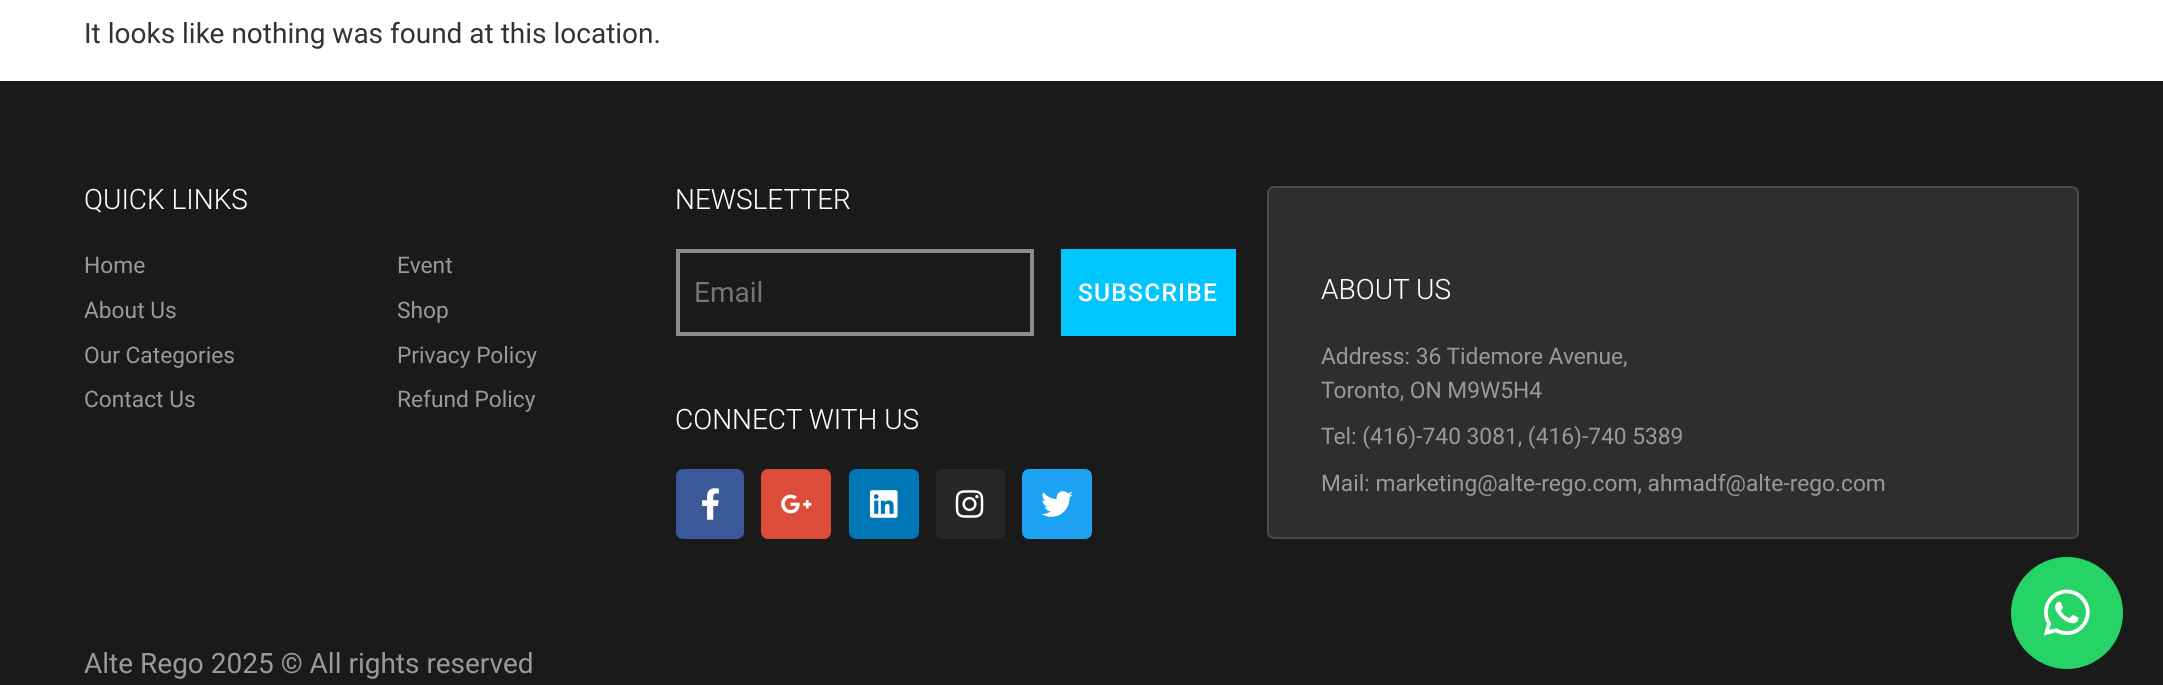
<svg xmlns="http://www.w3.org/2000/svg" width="2163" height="685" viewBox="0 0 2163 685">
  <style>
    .t1 { font: 28px Roboto; fill: #333; }
    .t2 { font: 300 28px Roboto; fill: #fff; }
    .t3 { font: 22.75px Roboto; fill: #999; }
    .t4 { font: 28px Roboto; fill: #757575; }
    .t5 { font: 500 24.5px Roboto; letter-spacing: 1.25px; fill: #fff; }
    .t6 { font: 28px Roboto; fill: #999; }
  </style>
  <rect width="100%" height="100%" fill="#fff"/>
  <text x="84" y="43" class="t1">It looks like nothing was found at this location.</text>
  <rect x="0" y="81" width="2163" height="604" fill="#1a1a1a"/>
  <text x="84" y="209" class="t2">QUICK LINKS</text>
  <text x="84" y="273" class="t3">Home</text>
  <text x="84" y="318" class="t3">About Us</text>
  <text x="84" y="363" class="t3">Our Categories</text>
  <text x="84" y="407" class="t3">Contact Us</text>
  <text x="397" y="273" class="t3">Event</text>
  <text x="397" y="318" class="t3">Shop</text>
  <text x="397" y="363" class="t3">Privacy Policy</text>
  <text x="397" y="407" class="t3">Refund Policy</text>
  <text x="675" y="209" class="t2">NEWSLETTER</text>
  <rect x="678" y="251" width="354" height="83" fill="none" stroke="#8d8d8d" stroke-width="4"/>
  <text x="694" y="302" class="t4">Email</text>
  <rect x="1061" y="249" width="175" height="87" fill="#00c6ff"/>
  <text x="1078" y="301" class="t5">SUBSCRIBE</text>
  <text x="675" y="429" class="t2">CONNECT WITH US</text>
  <rect x="676" y="469" width="68" height="70" rx="7" fill="#3b5998"/>
  <image x="702" y="488" width="17" height="32" href="images/1.png"/>
  <rect x="761" y="469" width="70" height="70" rx="7" fill="#dd4b39"/>
  <image x="781" y="494" width="31" height="20" href="images/2.png"/>
  <rect x="849" y="469" width="70" height="70" rx="7" fill="#0077b5"/>
  <image x="869" y="490" width="29" height="28" href="images/3.png"/>
  <rect x="936" y="469" width="69" height="70" rx="7" fill="#262626"/>
  <image x="955" y="490" width="29" height="28" href="images/4.png"/>
  <rect x="1022" y="469" width="70" height="70" rx="7" fill="#1da1f2"/>
  <image x="1041" y="491" width="32" height="26" href="images/5.png"/>
  <rect x="1267" y="186" width="812" height="353" rx="7" fill="#2e2e31"/>
  <rect x="1268" y="187" width="810" height="351" rx="6" fill="none" stroke="#e1e1ff26" stroke-width="2"/>
  <text x="1321" y="299" class="t2">ABOUT US</text>
  <text x="1321" y="364" class="t3">Address: 36 Tidemore Avenue,</text>
  <text x="1321" y="398" class="t3">Toronto, ON M9W5H4</text>
  <text x="1321" y="444" class="t3">Tel: (416)-740 3081, (416)-740 5389</text>
  <text x="1321" y="491" class="t3">Mail: marketing@alte-rego.com, ahmadf@alte-rego.com</text>
  <text x="84" y="673" class="t6">Alte Rego 2025 © All rights reserved</text>
  <circle cx="2067" cy="613" r="56" fill="#25d366"/>
  <image x="2043" y="589" width="47" height="47" href="images/6.png"/>
</svg>
